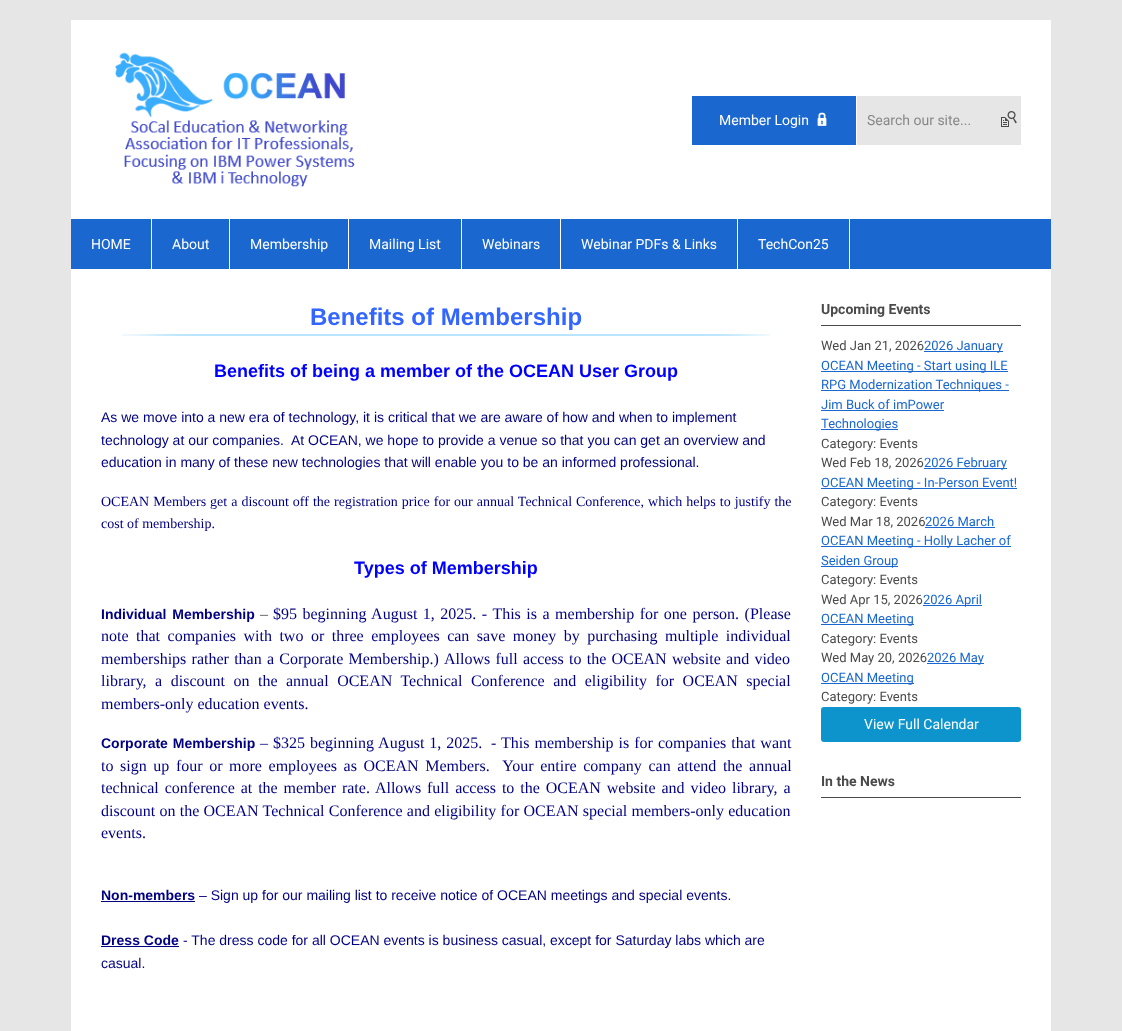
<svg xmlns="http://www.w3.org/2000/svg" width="1122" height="1031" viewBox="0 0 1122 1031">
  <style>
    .t1 { font: 14px Roboto; fill: #fff; }
    .t2 { font: 14px Roboto; fill: #888; }
    .t3 { font: bold 24px Liberation Sans; fill: #36f; }
    .t4 { font: bold 18px Liberation Sans; fill: #00f; }
    .t5 { font: 14px Liberation Sans; fill: #000080; }
    .t6 { font: 14px Liberation Serif; fill: #000080; }
    .t7 { font: bold 14px Liberation Sans; fill: #000080; }
    .t8 { font: 16px Liberation Serif; fill: #4a4a4a; }
    .t9 { font: 16px Liberation Serif; fill: #000080; }
    .t10 { font: bold 14px Roboto; fill: #4a4a4a; }
    .t11 { font: 13px Roboto; fill: #4a4a4a; }
    .t12 { font: 13px Roboto; fill: #1a67cf; }
  </style>
  <rect width="100%" height="100%" fill="#e6e6e6"/>
  <rect x="71" y="20" width="980" height="199" fill="#fff"/>
  <image x="115" y="52" width="240" height="135" href="images/1.png"/>
  <rect x="692" y="96" width="164" height="49" fill="#1a67cf"/>
  <text x="719" y="125" class="t1">Member Login</text>
  <image x="817" y="112" width="10" height="14" href="images/2.png"/>
  <rect x="857" y="96" width="164" height="49" fill="#e6e6e6"/>
  <text x="867" y="125" class="t2">Search our site...</text>
  <image x="1001" y="111" width="16" height="16" href="images/3.png"/>
  <rect x="71" y="219" width="980" height="50" fill="#1a67cf"/>
  <rect x="71" y="269" width="980" height="762" fill="#fff"/>
  <rect x="151" y="219" width="1" height="50" fill="#fff"/>
  <text x="91" y="249" class="t1">HOME</text>
  <rect x="229" y="219" width="1" height="50" fill="#fff"/>
  <text x="172" y="249" class="t1">About</text>
  <rect x="348" y="219" width="1" height="50" fill="#fff"/>
  <text x="250" y="249" class="t1">Membership</text>
  <rect x="461" y="219" width="1" height="50" fill="#fff"/>
  <text x="369" y="249" class="t1">Mailing List</text>
  <rect x="560" y="219" width="1" height="50" fill="#fff"/>
  <text x="482" y="249" class="t1">Webinars</text>
  <rect x="737" y="219" width="1" height="50" fill="#fff"/>
  <text x="581" y="249" class="t1">Webinar PDFs &amp; Links</text>
  <rect x="849" y="219" width="1" height="50" fill="#fff"/>
  <text x="758" y="249" class="t1">TechCon25</text>
  <text x="310" y="325" class="t3">Benefits of Membership</text>
  <image x="122" y="334" width="648" height="2" href="images/4.png"/>
  <text x="214" y="377" class="t4">Benefits of being a member of the OCEAN User Group</text>
  <text x="101" y="422" class="t5">As we move into a new era of technology, it is critical that we are aware of how and when to implement</text>
  <text x="101" y="445" class="t5" xml:space="preserve">technology at our companies.  At OCEAN, we hope to provide a venue so that you can get an overview and</text>
  <text x="101" y="467" class="t5">education in many of these new technologies that will enable you to be an informed professional.</text>
  <text x="101" y="506" word-spacing="0.5" class="t6">OCEAN Members get a discount off the registration price for our annual Technical Conference, which helps to justify the</text>
  <text x="101" y="528" class="t6">cost of membership.</text>
  <text x="354" y="574" class="t4">Types of Membership</text>
  <text x="101" y="619" word-spacing="2" class="t7">Individual Membership</text>
  <text x="260" y="619" class="t8">–</text>
  <text x="273" y="619" word-spacing="1.5" class="t9">$95 beginning August 1, 2025. - This is a membership for one person. (Please</text>
  <text x="101" y="641" word-spacing="3.5" class="t9">note that companies with two or three employees can save money by purchasing multiple individual</text>
  <text x="101" y="664" word-spacing="1.25" class="t9">memberships rather than a Corporate Membership.)</text>
  <text x="444" y="664" word-spacing="1.25" class="t9">Allows full access to the OCEAN website and video</text>
  <text x="101" y="686" word-spacing="4.5" class="t9">library, a discount on the annual OCEAN Technical Conference and eligibility for OCEAN special</text>
  <text x="101" y="709" class="t9">members-only education events.</text>
  <text x="101" y="748" word-spacing="1" class="t7">Corporate Membership</text>
  <text x="260" y="748" class="t9">–</text>
  <text x="273" y="748" word-spacing="1" class="t9">$325 beginning August 1, 2025.</text>
  <text x="491" y="748" word-spacing="1" class="t9">- This membership is for companies that want</text>
  <text x="101" y="771" word-spacing="2.6" class="t9" xml:space="preserve">to sign up four or more employees as OCEAN Members.  Your entire company can attend the annual</text>
  <text x="101" y="793" word-spacing="1.9" class="t9">technical conference at the member rate. Allows full access to the OCEAN website and video library, a</text>
  <text x="101" y="816" word-spacing="0.25" class="t9">discount on the OCEAN Technical Conference and eligibility for OCEAN special members-only education</text>
  <text x="101" y="838" class="t9">events.</text>
  <text x="101" y="900" class="t7">Non-members</text>
  <rect x="101" y="901" width="94" height="1" fill="#000080"/>
  <text x="199" y="900" class="t5">– Sign up for our mailing list to receive notice of OCEAN meetings and special events.</text>
  <text x="101" y="945" class="t7">Dress Code</text>
  <rect x="101" y="946" width="78" height="1" fill="#000080"/>
  <text x="183" y="945" class="t5">- The dress code for all OCEAN events is business casual, except for Saturday labs which are</text>
  <text x="101" y="968" class="t5">casual.</text>
  <rect x="821" y="325" width="200" height="1" fill="#4a4a4a"/>
  <text x="821" y="314" class="t10">Upcoming Events</text>
  <text x="821" y="350" class="t11">Wed Jan 21, 2026</text>
  <rect x="924" y="351" width="79" height="1" fill="#1a67cf"/>
  <text x="924" y="350" class="t12">2026 January</text>
  <rect x="821" y="371" width="187" height="1" fill="#1a67cf"/>
  <text x="821" y="370" class="t12">OCEAN Meeting - Start using ILE</text>
  <rect x="821" y="390" width="188" height="1" fill="#1a67cf"/>
  <text x="821" y="389" class="t12">RPG Modernization Techniques -</text>
  <text x="821" y="409" class="t12">Jim Buck of imPower</text>
  <rect x="821" y="410" width="123" height="1" fill="#1a67cf"/>
  <rect x="821" y="429" width="77" height="1" fill="#1a67cf"/>
  <text x="821" y="428" class="t12">Technologies</text>
  <text x="821" y="448" class="t11">Category: Events</text>
  <text x="821" y="467" class="t11">Wed Feb 18, 2026</text>
  <rect x="924" y="468" width="83" height="1" fill="#1a67cf"/>
  <text x="924" y="467" class="t12">2026 February</text>
  <rect x="821" y="488" width="196" height="1" fill="#1a67cf"/>
  <text x="821" y="487" class="t12">OCEAN Meeting - In-Person Event!</text>
  <text x="821" y="506" class="t11">Category: Events</text>
  <text x="821" y="526" class="t11">Wed Mar 18, 2026</text>
  <text x="925" y="526" class="t12">2026 March</text>
  <rect x="925" y="527" width="70" height="1" fill="#1a67cf"/>
  <rect x="821" y="546" width="190" height="1" fill="#1a67cf"/>
  <text x="821" y="545" class="t12">OCEAN Meeting - Holly Lacher of</text>
  <rect x="821" y="566" width="77" height="1" fill="#1a67cf"/>
  <text x="821" y="565" class="t12">Seiden Group</text>
  <text x="821" y="584" class="t11">Category: Events</text>
  <text x="821" y="604" class="t11">Wed Apr 15, 2026</text>
  <rect x="923" y="605" width="59" height="1" fill="#1a67cf"/>
  <text x="923" y="604" class="t12">2026 April</text>
  <rect x="821" y="624" width="93" height="1" fill="#1a67cf"/>
  <text x="821" y="623" class="t12">OCEAN Meeting</text>
  <text x="821" y="643" class="t11">Category: Events</text>
  <text x="821" y="662" class="t11">Wed May 20, 2026</text>
  <rect x="927" y="663" width="57" height="1" fill="#1a67cf"/>
  <text x="927" y="662" class="t12">2026 May</text>
  <rect x="821" y="683" width="93" height="1" fill="#1a67cf"/>
  <text x="821" y="682" class="t12">OCEAN Meeting</text>
  <text x="821" y="701" class="t11">Category: Events</text>
  <rect x="821" y="707" width="200" height="35" rx="3" fill="#0d94cc"/>
  <text x="864" y="729" class="t1">View Full Calendar</text>
  <rect x="821" y="797" width="200" height="1" fill="#4a4a4a"/>
  <text x="821" y="786" class="t10">In the News</text>
</svg>
